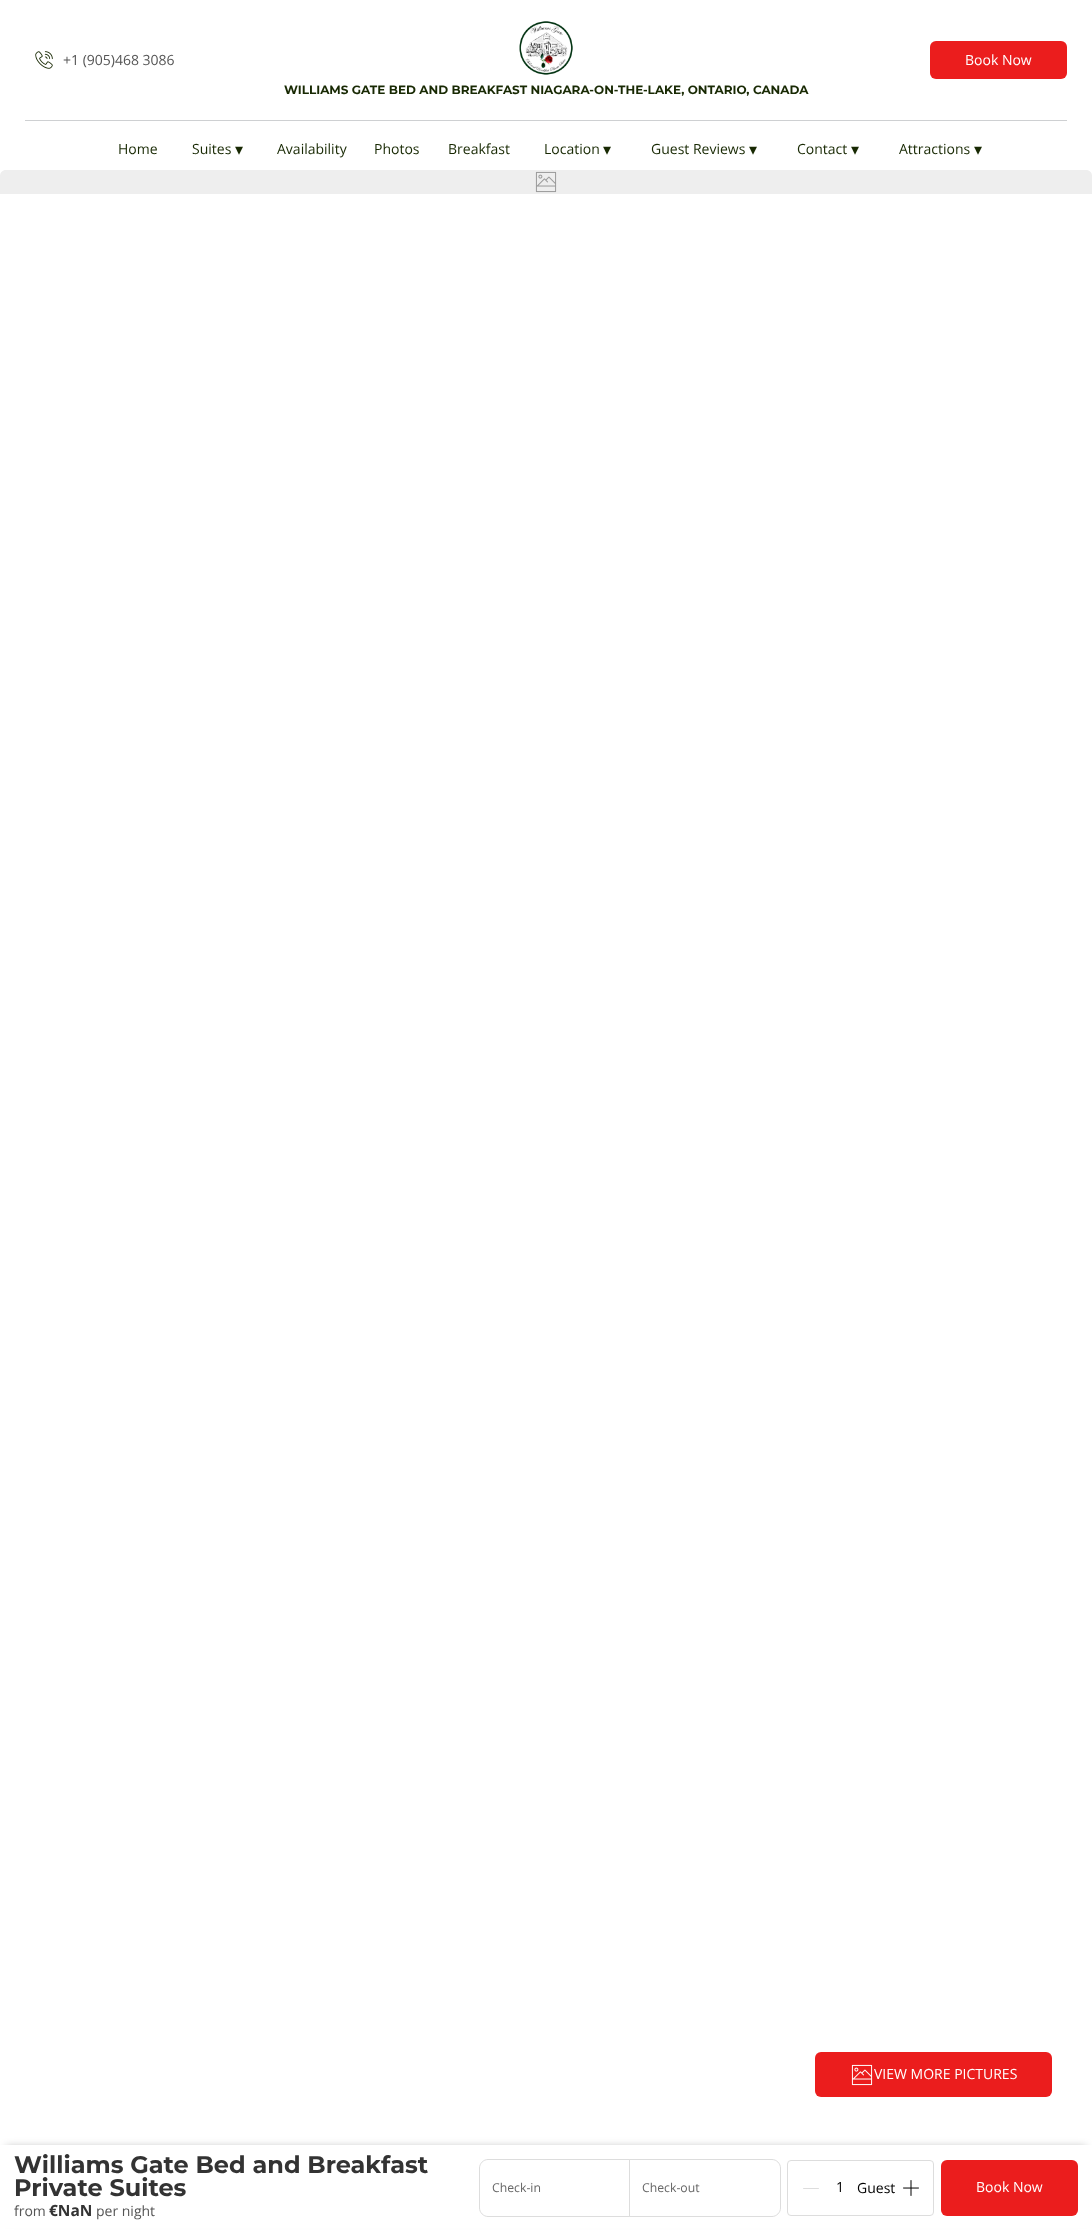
<svg xmlns="http://www.w3.org/2000/svg" width="1092" height="2230" viewBox="0 0 1092 2230">
  <style>
    .t1 { font: 14px Open Sans; fill: #555; }
    .t2 { font: 14px Open Sans; fill: #fff; }
    .t3 { font: bold 12px Montserrat; fill: #182903; }
    .t4 { font: 14px Open Sans; fill: #182903; }
    .t5 { font: 16px DejaVu Sans; fill: #182903; }
    .t6 { font: bold 24px Montserrat; fill: #333; }
    .t7 { font: bold 15.5px Open Sans; fill: #333; }
    .t8 { font: 12.25px Open Sans; fill: #666; }
    .t9 { font: 14px Open Sans; fill: #000; }
  </style>
  <rect width="100%" height="100%" fill="#fff"/>
  <rect x="25" y="120" width="1042" height="1" fill="#ced0d2"/>
  <image x="35" y="51" width="18" height="18" href="images/1.png"/>
  <text x="63" y="65" class="t1">+1 (905)468 3086</text>
  <rect x="930" y="41" width="137" height="38" rx="6" fill="#eb1d1d"/>
  <text x="965" y="65" class="t2">Book Now</text>
  <image x="519" y="21" width="54" height="54" href="images/2.png"/>
  <text x="284" y="94" class="t3">WILLIAMS GATE BED AND BREAKFAST NIAGARA-ON-THE-LAKE, ONTARIO, CANADA</text>
  <text x="118" y="154" class="t4">Home</text>
  <text x="192" y="154" class="t4">Suites</text>
  <text x="235" y="155" class="t5">▾</text>
  <text x="277" y="154" class="t4">Availability</text>
  <text x="374" y="154" class="t4">Photos</text>
  <text x="448" y="154" class="t4">Breakfast</text>
  <text x="544" y="154" class="t4">Location</text>
  <text x="603" y="155" class="t5">▾</text>
  <text x="651" y="154" class="t4">Guest Reviews</text>
  <text x="749" y="155" class="t5">▾</text>
  <text x="797" y="154" class="t4">Contact</text>
  <text x="851" y="155" class="t5">▾</text>
  <text x="899" y="154" class="t4">Attractions</text>
  <text x="974" y="155" class="t5">▾</text>
  <path d="M6 170H1086C1089.5 170 1092 172.5 1092 176V194H0V176C0 172.5 2.5 170 6 170Z" fill="#eee"/>
  <image x="535" y="171" width="22" height="22" href="images/3.png"/>
  <rect x="815" y="2052" width="237" height="45" rx="6" fill="#eb1d1d"/>
  <image x="851" y="2064" width="22" height="22" href="images/4.png"/>
  <text x="874" y="2079" class="t2">VIEW MORE PICTURES</text>
  <rect x="6" y="2147" width="1080" height="73" fill="#0000004a" filter="blur(4.5px)"/>
  <rect x="0" y="2145" width="1092" height="83" fill="#fff"/>
  <text x="14" y="2173" class="t6">Williams Gate Bed and Breakfast</text>
  <text x="14" y="2196" class="t6">Private Suites</text>
  <text x="14" y="2216" class="t1">from</text>
  <text x="49" y="2216" class="t7">€NaN</text>
  <text x="96" y="2216" class="t1">per night</text>
  <path d="M488 2159.5H630.5V2216.5H488C483.5 2216.5 479.5 2212.5 479.5 2208V2168C479.5 2163.5 483.5 2159.5 488 2159.5Z" fill="none" stroke="#ddd"/>
  <text x="492" y="2192" class="t8">Check-in</text>
  <path d="M629.5 2159.5H772C776.5 2159.5 780.5 2163.5 780.5 2168V2208C780.5 2212.5 776.5 2216.5 772 2216.5H629.5Z" fill="#fff" stroke="#ddd"/>
  <text x="642" y="2192" class="t8">Check-out</text>
  <rect x="787.5" y="2160.5" width="146" height="55" rx="3.5" fill="none" stroke="#ddd"/>
  <image x="803" y="2188" width="16" height="1" href="images/5.png"/>
  <text x="836" y="2192" class="t9">1</text>
  <text x="857" y="2193" class="t9">Guest</text>
  <image x="903" y="2180" width="16" height="16" href="images/6.png"/>
  <rect x="941" y="2160" width="137" height="56" rx="6" fill="#eb1d1d"/>
  <text x="976" y="2192" class="t2">Book Now</text>
</svg>
